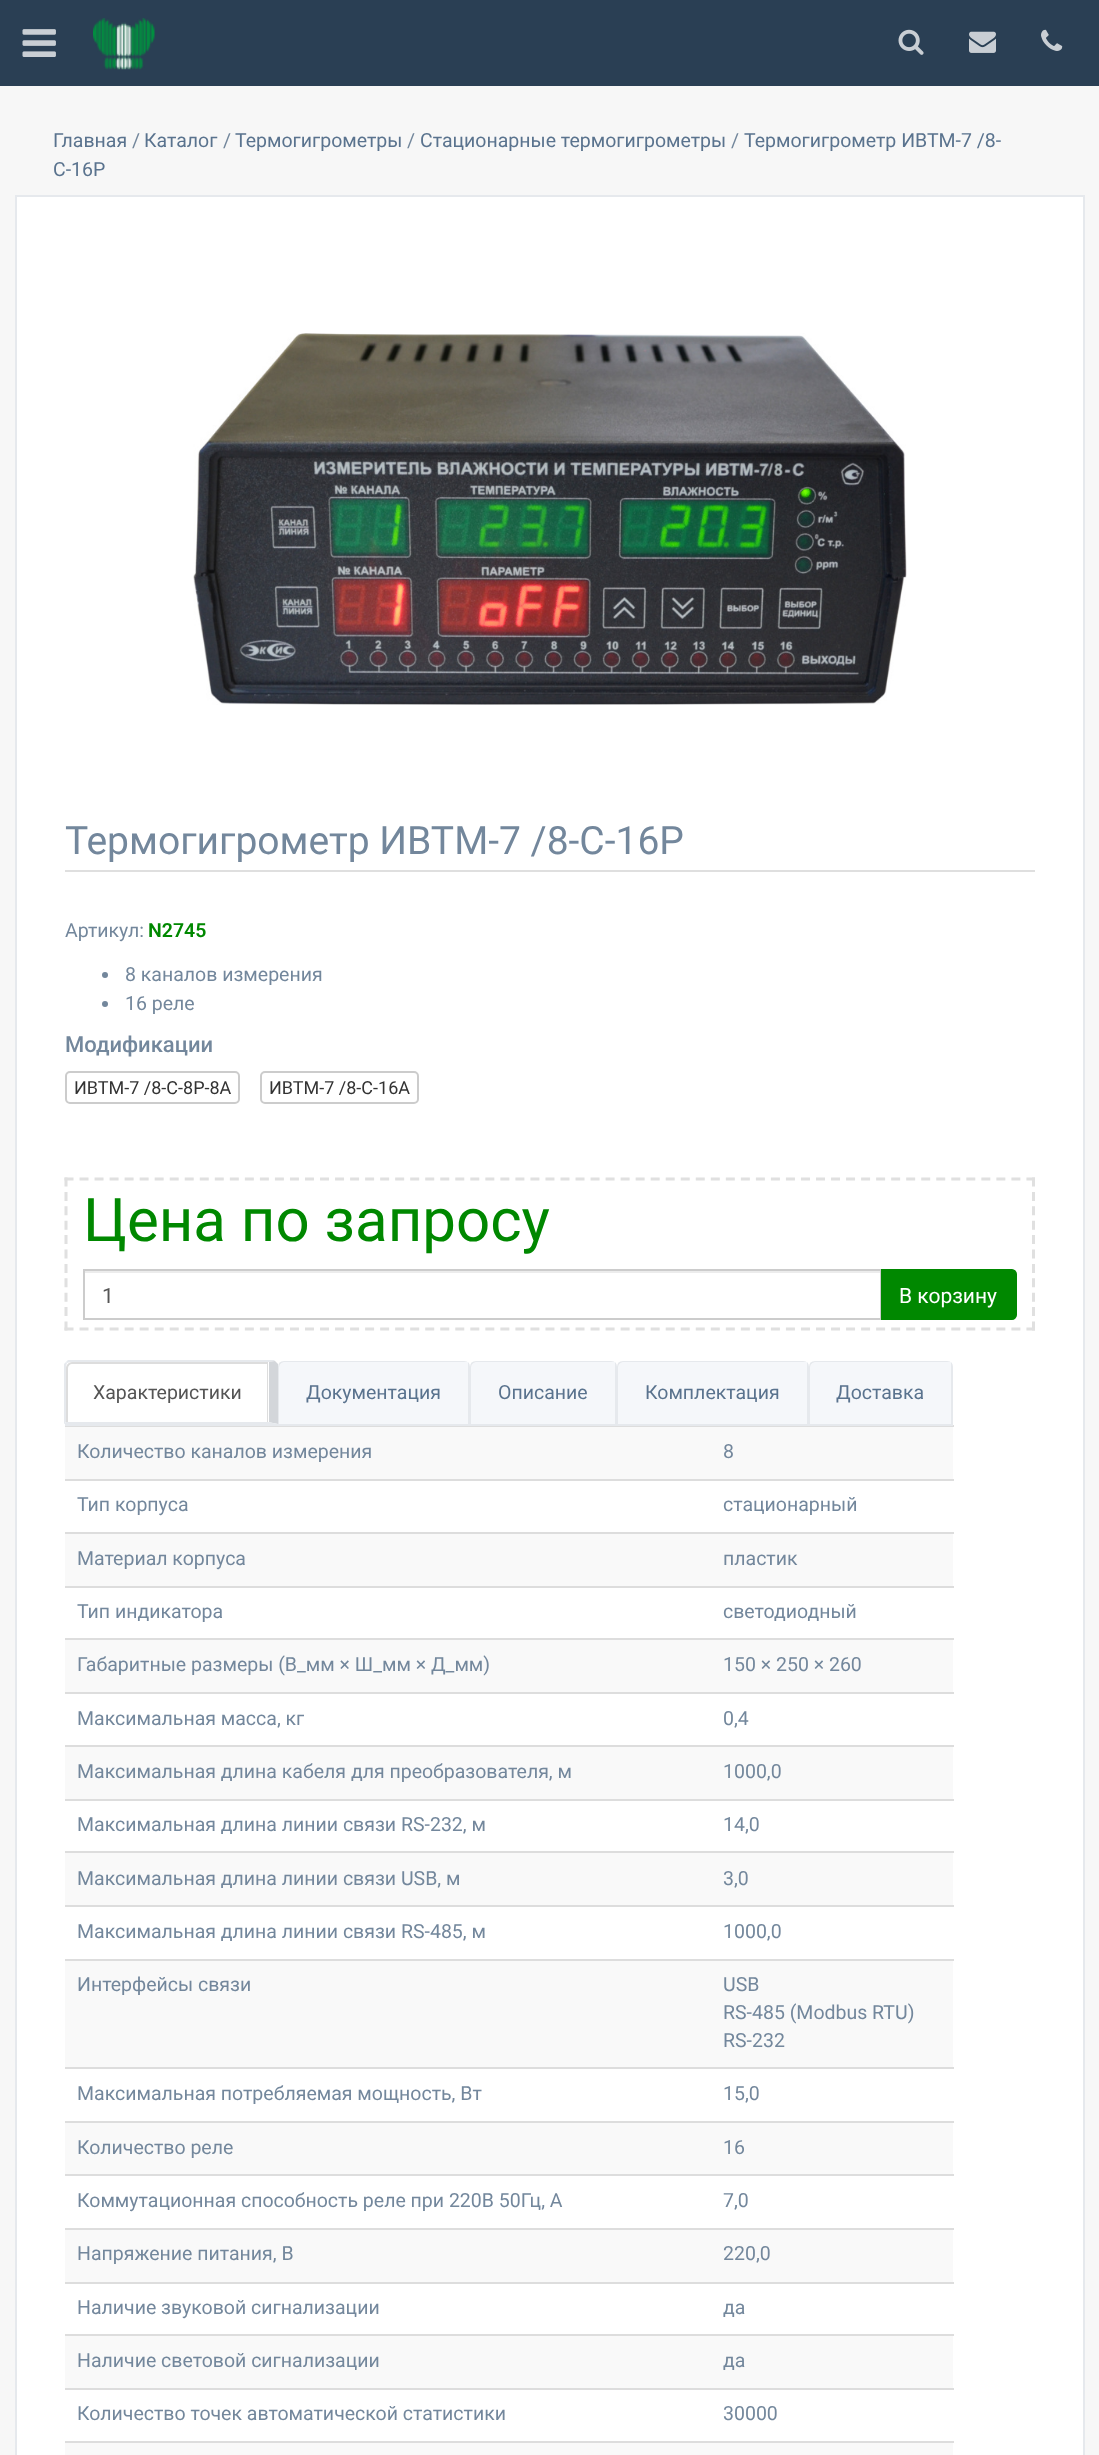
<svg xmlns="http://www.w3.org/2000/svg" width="1099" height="2455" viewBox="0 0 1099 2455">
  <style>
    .t1 { font: 19.5px Roboto; fill: #5a738e; }
    .t2 { font: 19.5px Roboto; fill: #73879c; }
    .t3 { font: 39px Roboto; fill: #73879c; }
    .t4 { font: 600 19.5px Roboto; fill: #080; }
    .t5 { font: 500 22px Roboto; fill: #73879c; }
    .t6 { font: 18px Roboto; fill: #333; }
    .t7 { font: 60px Roboto; fill: #080; }
    .t8 { font: 21px Roboto; fill: #555; }
    .t9 { font: 21px Roboto; fill: #fff; }
    .t10 { font: 19.5px Roboto; fill: #555; }
  </style>
  <rect width="100%" height="100%" fill="#f7f7f7"/>
  <rect x="0" y="0" width="1099" height="86" fill="#2a3f54"/>
  <image x="22" y="29" width="34" height="28" href="images/1.png"/>
  <image x="93" y="18" width="62" height="52" href="images/2.png"/>
  <image x="898" y="29" width="26" height="26" href="images/3.png"/>
  <image x="969" y="31" width="27" height="22" href="images/4.png"/>
  <image x="1041" y="29" width="22" height="22" href="images/5.png"/>
  <text x="53" y="147" class="t1">Главная</text>
  <text x="132" y="147" class="t2">/</text>
  <text x="144" y="147" class="t1">Каталог</text>
  <text x="223" y="147" class="t2">/</text>
  <text x="235" y="147" class="t1">Термогигрометры</text>
  <text x="407" y="147" class="t2">/</text>
  <text x="420" y="147" class="t1">Стационарные термогигрометры</text>
  <text x="731" y="147" class="t2">/</text>
  <text x="744" y="147" class="t1">Термогигрометр ИВТМ-7 /8-</text>
  <text x="53" y="176" class="t1">С-16Р</text>
  <rect x="16" y="196" width="1068" height="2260" fill="#fff" stroke="#e6e9ed" stroke-width="2"/>
  <image x="193" y="333" width="714" height="372" href="images/6.png"/>
  <rect x="65" y="870" width="970" height="2" fill="#dfdfdf"/>
  <text x="65" y="854" class="t3">Термогигрометр ИВТМ-7 /8-С-16Р</text>
  <text x="65" y="937" class="t2">Артикул:</text>
  <text x="148" y="937" class="t4">N2745</text>
  <circle cx="105" cy="975" r="3" fill="#73879c"/>
  <text x="125" y="981" class="t2">8 каналов измерения</text>
  <circle cx="105" cy="1004" r="3" fill="#73879c"/>
  <text x="125" y="1010" class="t2">16 реле</text>
  <text x="65" y="1052" class="t5">Модификации</text>
  <rect x="66" y="1072" width="173" height="31" rx="4" fill="none" stroke="#ccc" stroke-width="2"/>
  <text x="74" y="1094" class="t6">ИВТМ-7 /8-С-8Р-8А</text>
  <rect x="261" y="1072" width="157" height="31" rx="4" fill="none" stroke="#ccc" stroke-width="2"/>
  <text x="269" y="1094" class="t6">ИВТМ-7 /8-С-16А</text>
  <path d="M64.5 1179H1035" fill="none" stroke="#e0e0e0" stroke-width="3" stroke-dasharray="9 6.03"/>
  <path d="M1033.5 1177.5V1330.5" fill="none" stroke="#e0e0e0" stroke-width="3" stroke-dasharray="9 5.4"/>
  <path d="M64.5 1329H1035" fill="none" stroke="#e0e0e0" stroke-width="3" stroke-dasharray="9 6.03"/>
  <path d="M66 1177.5V1330.5" fill="none" stroke="#e0e0e0" stroke-width="3" stroke-dasharray="9 5.4"/>
  <text x="83" y="1241" class="t7">Цена по запросу</text>
  <rect x="84" y="1271" width="797" height="2" fill="#ececec"/>
  <rect x="84" y="1270" width="797" height="49" fill="none" stroke="#ccc" stroke-width="2"/>
  <text x="102" y="1303" class="t8">1</text>
  <path d="M882 1270H1012C1014 1270 1016 1272 1016 1274V1315C1016 1317 1014 1319 1012 1319H882Z" fill="#080" stroke="#080" stroke-width="2"/>
  <text x="899" y="1303" class="t9">В корзину</text>
  <rect x="711" y="1425" width="243" height="2" fill="#ddd"/>
  <rect x="65" y="1424" width="888" height="2" fill="#e6e9ed"/>
  <path d="M70 1362L67 1363L66 1362L68 1360H274L275 1361L268 1362Z" fill="#e6e9ed"/>
  <path d="M275 1361L278 1364V1424L268 1422V1362Z" fill="#d3d6da"/>
  <path d="M278 1424L268 1422H66L64 1424Z" fill="#e6e9ed"/>
  <path d="M64 1424V1364L66 1362L67 1363L66 1366V1422Z" fill="#e6e9ed"/>
  <path d="M72 1362H269V1422H66V1368C66 1364.5 68.5 1362 72 1362Z" fill="#fff"/>
  <path d="M72 1362H268V1422H66V1368C66 1365 69 1362 72 1362ZM72 1364H267V1422H68V1368C68 1366 70 1364 72 1364Z" fill="#ddd" fill-rule="evenodd"/>
  <text x="93" y="1399" class="t10">Характеристики</text>
  <path d="M284 1362H464C467 1362 469 1364 469 1367V1424H279V1367C279 1364 281 1362 284 1362Z" fill="none" stroke="#e6e9ed" stroke-width="2"/>
  <path d="M285 1362H468V1424H279V1368C279 1364.5 281.5 1362 285 1362Z" fill="#f5f7fa"/>
  <text x="306" y="1399" class="t1">Документация</text>
  <path d="M476 1362H611C614 1362 616 1364 616 1367V1424H471V1367C471 1364 473 1362 476 1362Z" fill="none" stroke="#e6e9ed" stroke-width="2"/>
  <path d="M477 1362H615V1424H471V1368C471 1364.5 473.5 1362 477 1362Z" fill="#f5f7fa"/>
  <text x="498" y="1399" class="t1">Описание</text>
  <path d="M623 1362H803C806 1362 808 1364 808 1367V1424H618V1367C618 1364 620 1362 623 1362Z" fill="none" stroke="#e6e9ed" stroke-width="2"/>
  <path d="M624 1362H807V1424H618V1368C618 1364.5 620.5 1362 624 1362Z" fill="#f5f7fa"/>
  <text x="645" y="1399" class="t1">Комплектация</text>
  <path d="M815 1362H947C950 1362 952 1364 952 1367V1424H810V1367C810 1364 812 1362 815 1362Z" fill="none" stroke="#e6e9ed" stroke-width="2"/>
  <path d="M816 1362H951V1424H810V1368C810 1364.5 812.5 1362 816 1362Z" fill="#f5f7fa"/>
  <text x="836" y="1399" class="t1">Доставка</text>
  <rect x="65" y="1427" width="888" height="52" fill="#f9f9f9"/>
  <rect x="65" y="1426" width="648" height="1" fill="#ddd"/>
  <text x="77" y="1458" class="t2">Количество каналов измерения</text>
  <text x="723" y="1458" class="t2">8</text>
  <text x="77" y="1511" class="t2">Тип корпуса</text>
  <rect x="65" y="1479" width="889" height="2" fill="#ddd"/>
  <text x="723" y="1511" class="t2">стационарный</text>
  <rect x="65" y="1534" width="888" height="52" fill="#f9f9f9"/>
  <text x="77" y="1565" class="t2">Материал корпуса</text>
  <rect x="65" y="1532" width="889" height="2" fill="#ddd"/>
  <text x="723" y="1565" class="t2">пластик</text>
  <text x="77" y="1618" class="t2">Тип индикатора</text>
  <rect x="65" y="1586" width="889" height="2" fill="#ddd"/>
  <text x="723" y="1618" class="t2">светодиодный</text>
  <rect x="65" y="1640" width="888" height="52" fill="#f9f9f9"/>
  <text x="77" y="1671" class="t2">Габаритные размеры (В_мм × Ш_мм × Д_мм)</text>
  <rect x="65" y="1638" width="889" height="2" fill="#ddd"/>
  <text x="723" y="1671" class="t2">150 × 250 × 260</text>
  <text x="77" y="1725" class="t2">Максимальная масса, кг</text>
  <rect x="65" y="1692" width="889" height="2" fill="#ddd"/>
  <text x="723" y="1725" class="t2">0,4</text>
  <rect x="65" y="1747" width="888" height="52" fill="#f9f9f9"/>
  <text x="77" y="1778" class="t2">Максимальная длина кабеля для преобразователя, м</text>
  <rect x="65" y="1745" width="889" height="2" fill="#ddd"/>
  <text x="723" y="1778" class="t2">1000,0</text>
  <text x="77" y="1831" class="t2">Максимальная длина линии связи RS-232, м</text>
  <rect x="65" y="1799" width="889" height="2" fill="#ddd"/>
  <text x="723" y="1831" class="t2">14,0</text>
  <rect x="65" y="1853" width="888" height="52" fill="#f9f9f9"/>
  <text x="77" y="1885" class="t2">Максимальная длина линии связи USB, м</text>
  <rect x="65" y="1851" width="889" height="2" fill="#ddd"/>
  <text x="723" y="1885" class="t2">3,0</text>
  <text x="77" y="1938" class="t2">Максимальная длина линии связи RS-485, м</text>
  <rect x="65" y="1905" width="889" height="2" fill="#ddd"/>
  <text x="723" y="1938" class="t2">1000,0</text>
  <rect x="65" y="1961" width="888" height="106" fill="#f9f9f9"/>
  <text x="77" y="1991" class="t2">Интерфейсы связи</text>
  <rect x="65" y="1959" width="889" height="2" fill="#ddd"/>
  <text x="723" y="1991" class="t2">USB</text>
  <text x="723" y="2019" class="t2">RS-485 (Modbus RTU)</text>
  <text x="723" y="2047" class="t2">RS-232</text>
  <text x="77" y="2100" class="t2">Максимальная потребляемая мощность, Вт</text>
  <rect x="65" y="2067" width="889" height="2" fill="#ddd"/>
  <text x="723" y="2100" class="t2">15,0</text>
  <rect x="65" y="2123" width="888" height="51" fill="#f9f9f9"/>
  <text x="77" y="2154" class="t2">Количество реле</text>
  <rect x="65" y="2121" width="889" height="2" fill="#ddd"/>
  <text x="723" y="2154" class="t2">16</text>
  <text x="77" y="2207" class="t2">Коммутационная способность реле при 220В 50Гц, А</text>
  <rect x="65" y="2174" width="889" height="2" fill="#ddd"/>
  <text x="723" y="2207" class="t2">7,0</text>
  <rect x="65" y="2230" width="888" height="52" fill="#f9f9f9"/>
  <text x="77" y="2260" class="t2">Напряжение питания, В</text>
  <rect x="65" y="2228" width="889" height="2" fill="#ddd"/>
  <text x="723" y="2260" class="t2">220,0</text>
  <text x="77" y="2314" class="t2">Наличие звуковой сигнализации</text>
  <rect x="65" y="2282" width="889" height="2" fill="#ddd"/>
  <text x="723" y="2314" class="t2">да</text>
  <rect x="65" y="2336" width="888" height="52" fill="#f9f9f9"/>
  <text x="77" y="2367" class="t2">Наличие световой сигнализации</text>
  <rect x="65" y="2334" width="889" height="2" fill="#ddd"/>
  <text x="723" y="2367" class="t2">да</text>
  <text x="77" y="2420" class="t2">Количество точек автоматической статистики</text>
  <rect x="65" y="2388" width="889" height="2" fill="#ddd"/>
  <text x="723" y="2420" class="t2">30000</text>
  <rect x="65" y="2443" width="888" height="12" fill="#f9f9f9"/>
  <rect x="65" y="2441" width="889" height="2" fill="#ddd"/>
</svg>
